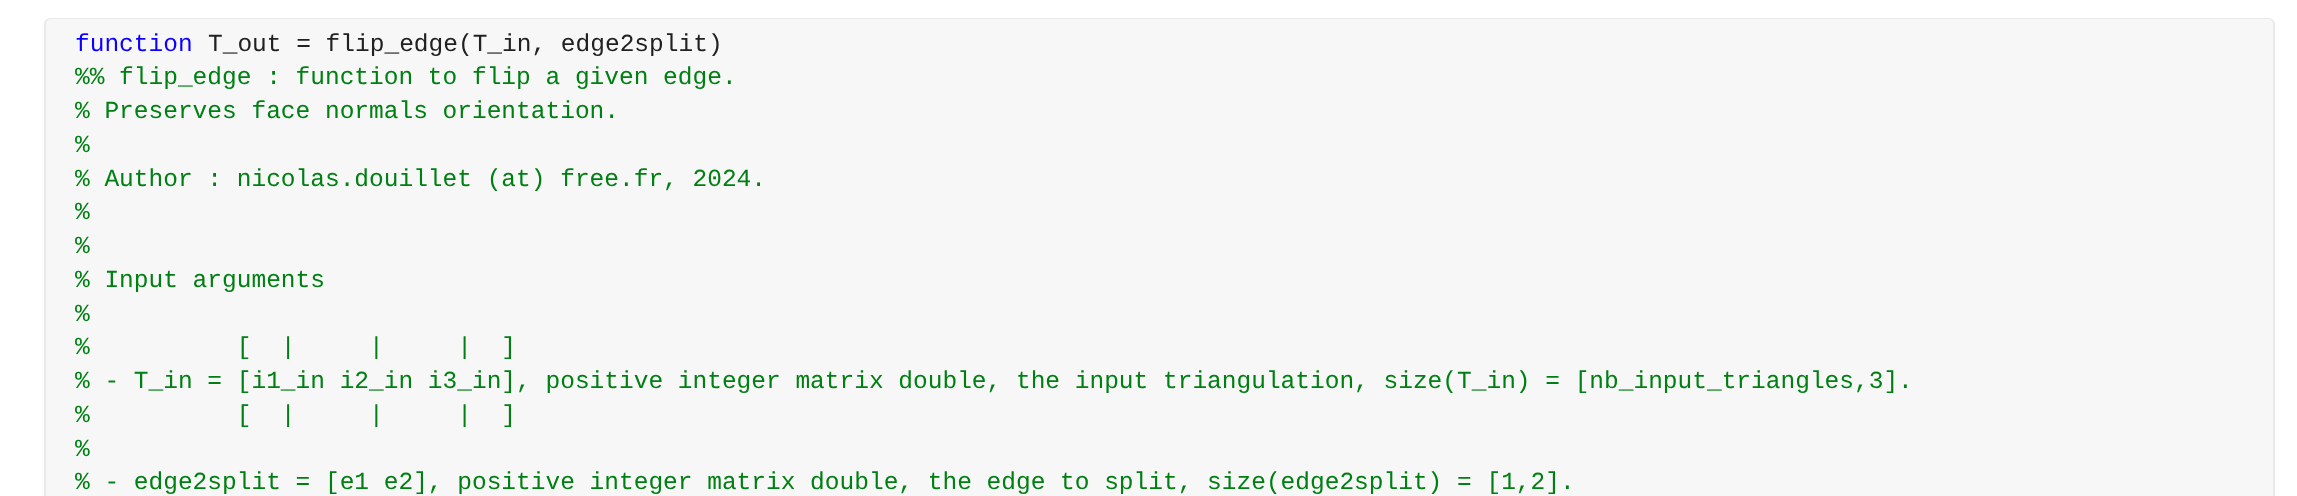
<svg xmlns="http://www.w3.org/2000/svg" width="2297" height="496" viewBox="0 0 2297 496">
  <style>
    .t1 { font: 24.5px Liberation Mono; fill: #0e00ff; }
    .t2 { font: 24.5px Liberation Mono; fill: #212121; }
    .t3 { font: 24.5px Liberation Mono; fill: #008013; }
  </style>
  <rect width="100%" height="100%" fill="#fff"/>
  <path d="M51 18H2268C2272 18 2275 21 2275 25V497H44V25C44 21 47 18 51 18Z" fill="#f7f7f7"/>
  <path d="M51 18H2268C2272 18 2275 21 2275 24V61H44V24C44 21 47 18 51 18ZM51 19H2268C2271 19 2273 22 2273 24V61H46V24C46 22 48 19 51 19Z" fill="#e9e9e9" fill-rule="evenodd"/>
  <text x="75" y="51" class="t1">function</text>
  <text x="208" y="51" class="t2">T_out = flip_edge(T_in, edge2split)</text>
  <rect x="2273" y="61" width="2" height="435" fill="#e9e9e9"/>
  <rect x="44" y="61" width="2" height="435" fill="#e9e9e9"/>
  <text x="75" y="84" class="t3">%% flip_edge : function to flip a given edge.</text>
  <text x="75" y="118" class="t3">% Preserves face normals orientation.</text>
  <text x="75" y="152" class="t3">%</text>
  <text x="75" y="186" class="t3">% Author : nicolas.douillet (at) free.fr, 2024.</text>
  <text x="75" y="219" class="t3">%</text>
  <text x="75" y="253" class="t3">%</text>
  <text x="75" y="287" class="t3">% Input arguments</text>
  <text x="75" y="321" class="t3">%</text>
  <text x="75" y="354" class="t3" xml:space="preserve">%          [  |     |     |  ]</text>
  <text x="75" y="388" class="t3">% - T_in = [i1_in i2_in i3_in], positive integer matrix double, the input triangulation, size(T_in) = [nb_input_triangles,3].</text>
  <text x="75" y="422" class="t3" xml:space="preserve">%          [  |     |     |  ]</text>
  <text x="75" y="456" class="t3">%</text>
  <text x="75" y="489" class="t3">% - edge2split = [e1 e2], positive integer matrix double, the edge to split, size(edge2split) = [1,2].</text>
</svg>
